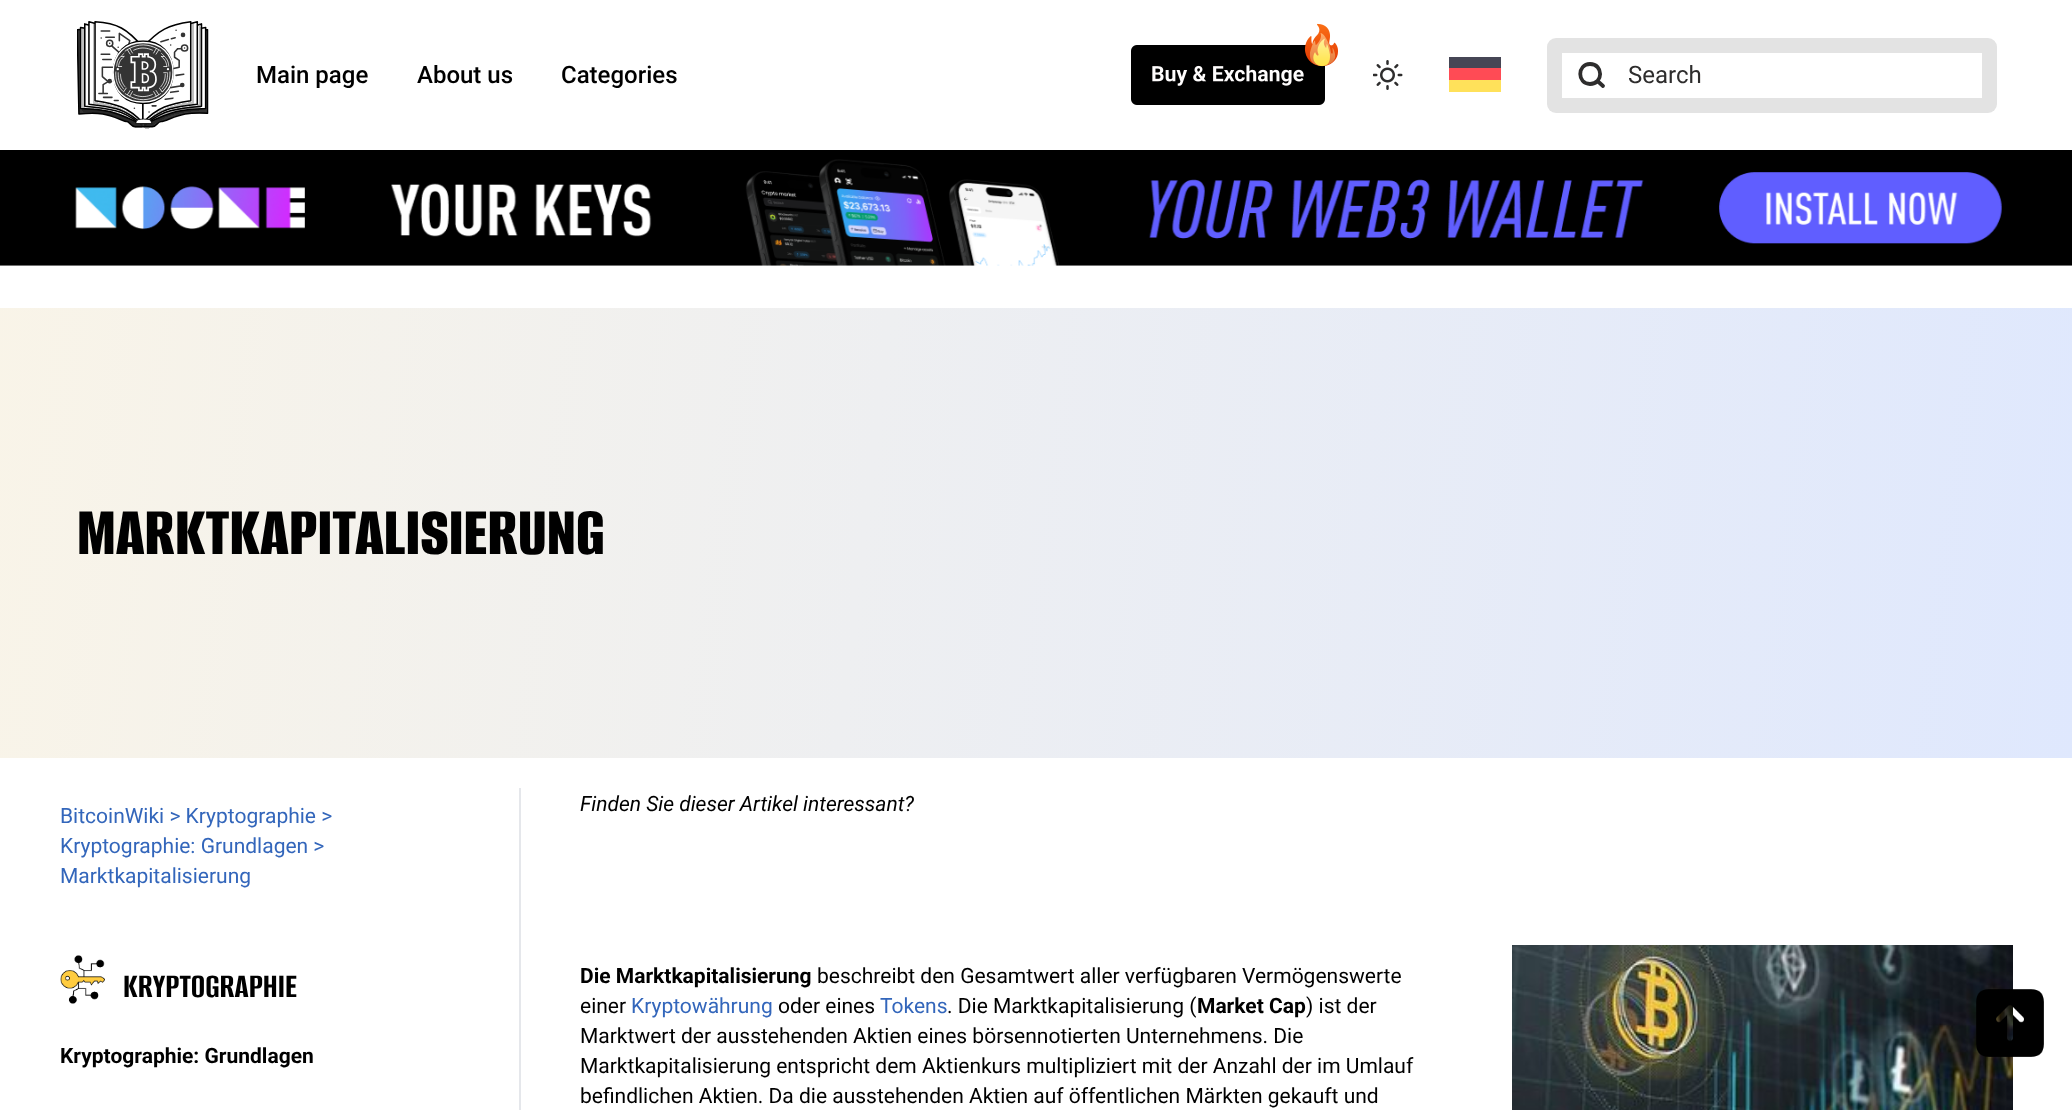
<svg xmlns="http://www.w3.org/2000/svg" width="2072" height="1110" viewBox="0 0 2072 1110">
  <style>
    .t1 { font: 500 24px Roboto; fill: #000; }
    .t2 { font: 24px Roboto; fill: #2e2d2d; }
    .t3 { font: 800 72px Alumni Sans; fill: #000; }
    .t4 { font: 21px Roboto; fill: #36b; }
    .t5 { font: bold 36px Alumni Sans; fill: #000; }
    .t6 { font: bold 21px Roboto; fill: #000; }
    .t7 { font: italic 21px Roboto; fill: #000; }
    .t8 { font: 21px Roboto; fill: #000; }
  </style>
  <defs>
    <linearGradient id="g1" gradientUnits="userSpaceOnUse" x1="-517" y1="347" x2="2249" y2="678"><stop offset="0" stop-color="#fff7e3"/><stop offset="1" stop-color="#dde7ff"/></linearGradient>
  </defs>
  <rect width="100%" height="100%" fill="#fff"/>
  <image x="77" y="21" width="132" height="108" href="images/1.png"/>
  <text x="256" y="83" class="t1">Main page</text>
  <text x="417" y="83" class="t1">About us</text>
  <text x="561" y="83" class="t1">Categories</text>
  <image x="1131" y="45" width="194" height="60" href="images/3.png"/>
  <image x="1304" y="23" width="34" height="44" href="images/2.png"/>
  <image x="1373" y="60" width="30" height="30" href="images/4.png"/>
  <rect x="1449" y="57" width="52" height="11" fill="#464655"/>
  <rect x="1449" y="68" width="52" height="12" fill="#ff4b55"/>
  <rect x="1449" y="80" width="52" height="12" fill="#ffe15a"/>
  <rect x="1547" y="38" width="450" height="75" rx="9" fill="#e3e3e3"/>
  <rect x="1562" y="53" width="420" height="45" fill="#fff"/>
  <path d="M1590 84C1603.5 84 1603.5 64 1590 64C1577 64 1577 84 1590 84ZM1603 86L1597.5 81" fill="none" stroke="#2e2d2d" stroke-width="3.8" stroke-linecap="round" stroke-linejoin="round"/>
  <text x="1628" y="83" class="t2">Search</text>
  <image x="0" y="150" width="2072" height="116" href="images/5.png"/>
  <rect x="0" y="308" width="2072" height="450" fill="url(#g1)"/>
  <text x="77" y="554" class="t3">MARKTKAPITALISIERUNG</text>
  <text x="60" y="823" class="t4">BitcoinWiki &gt; Kryptographie &gt;</text>
  <text x="60" y="853" class="t4">Kryptographie: Grundlagen &gt;</text>
  <text x="60" y="883" class="t4">Marktkapitalisierung</text>
  <image x="60" y="955" width="45" height="49" href="images/6.png"/>
  <text x="123" y="997" class="t5">KRYPTOGRAPHIE</text>
  <text x="60" y="1063" class="t6">Kryptographie: Grundlagen</text>
  <rect x="519" y="788" width="2" height="322" fill="#e5e7eb"/>
  <text x="580" y="811" class="t7">Finden Sie dieser Artikel interessant?</text>
  <text x="580" y="983" class="t6">Die Marktkapitalisierung</text>
  <text x="817" y="983" class="t8">beschreibt den Gesamtwert aller verfügbaren Vermögenswerte</text>
  <text x="580" y="1013" class="t8">einer</text>
  <text x="631" y="1013" class="t4">Kryptowährung</text>
  <text x="778" y="1013" class="t8">oder eines</text>
  <text x="880" y="1013" class="t4">Tokens</text>
  <text x="947" y="1013" class="t8">. Die Marktkapitalisierung (</text>
  <text x="1197" y="1013" class="t6">Market Cap</text>
  <text x="1306" y="1013" class="t8">) ist der</text>
  <text x="580" y="1043" class="t8">Marktwert der ausstehenden Aktien eines börsennotierten Unternehmens. Die</text>
  <text x="580" y="1073" class="t8">Marktkapitalisierung entspricht dem Aktienkurs multipliziert mit der Anzahl der im Umlauf</text>
  <text x="580" y="1103" class="t8">befindlichen Aktien. Da die ausstehenden Aktien auf öffentlichen Märkten gekauft und</text>
  <image x="1512" y="945" width="501" height="165" href="images/7.png"/>
  <image x="1976" y="989" width="68" height="68" href="images/8.png"/>
</svg>
